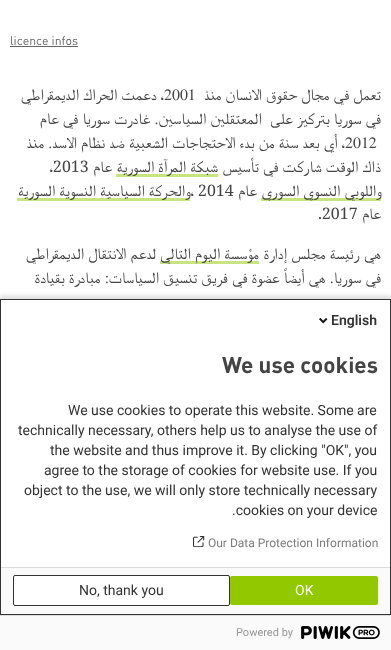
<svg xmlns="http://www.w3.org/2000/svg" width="391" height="650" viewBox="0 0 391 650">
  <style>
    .t1 { font: 12.25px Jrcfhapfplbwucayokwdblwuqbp; fill: #666; }
    .t2 { font: 15.9px FreeSerif; direction: rtl; fill: #444; }
    .t3 { font: 15.9px FreeSerif; fill: #444; }
    .t4 { font: 15.9px Noto Serif; fill: #444; }
    .t5 { font: 600 14px Roboto; fill: #333; }
    .t6 { font: bold 22.5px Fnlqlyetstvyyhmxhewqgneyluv; fill: #444; }
    .t7 { font: 14px Roboto; fill: #333; }
    .t8 { font: 12px Roboto; fill: #7c7c7c; }
    .t9 { font: 14px Roboto; fill: #fff; }
    .t10 { font: 11px Roboto; fill: #999; }
  </style>
  <rect width="100%" height="100%" fill="#fff"/>
  <text x="10" y="45" class="t1">licence infos</text>
  <rect x="10" y="46" width="68" height="1" fill="#666"/>
  <text x="164" y="100" class="t2">، دعمت الحراك الديمقراطي</text>
  <text x="164" y="100" class="t3">2001</text>
  <text x="381" y="100" word-spacing="0.1" class="t2">تعمل في مجال حقوق الانسان منذ</text>
  <text x="381" y="124" word-spacing="0.1" class="t2" xml:space="preserve">في سوريا بتركيز على  المعتقلين السياسين. غادرت سوريا في عام</text>
  <text x="345" y="148" word-spacing="0.1" class="t2">، أي بعد سنة من بدء الاحتجاجات الشعبية ضد نظام الاسد. منذ</text>
  <text x="345" y="148" class="t3">2012</text>
  <text x="49" y="172" class="t3">،</text>
  <text x="53" y="172" class="t4">2013</text>
  <text x="112" y="172" class="t2">عام</text>
  <rect x="116" y="174" width="102" height="3" fill="#c8e480"/>
  <text x="218" y="172" class="t2">شبكة المرآة السورية</text>
  <text x="381" y="172" word-spacing="0.1" class="t2">ذاك الوقت شاركت في تأسيس</text>
  <rect x="17" y="198" width="173" height="3" fill="#c8e480"/>
  <text x="190" y="196" class="t2">والحركة السياسية النسوية السورية</text>
  <text x="190" y="196" class="t3">،</text>
  <text x="198" y="196" class="t4">2014</text>
  <text x="257" y="196" class="t2">عام</text>
  <rect x="261" y="198" width="120" height="3" fill="#c8e480"/>
  <text x="381" y="196" class="t2">واللوبي النسوي السوري</text>
  <text x="318" y="219" class="t4">.2017</text>
  <text x="381" y="219" class="t2">عام</text>
  <text x="156" y="259" class="t2">لدعم الانتقال الديمقراطي</text>
  <rect x="160" y="261" width="99" height="3" fill="#c8e480"/>
  <text x="259" y="259" class="t2">مؤسسة اليوم التالي</text>
  <text x="381" y="259" word-spacing="0.1" class="t2">هي رئيسة مجلس إدارة</text>
  <text x="381" y="283" word-spacing="0.25" class="t2">في سوريا. هي أيضاً عضوة في فريق تنسيق السياسات: مبادرة بقيادة</text>
  <rect x="-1" y="296" width="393" height="353" fill="#00000024" filter="blur(2.5px)"/>
  <rect x="1" y="300" width="389" height="267" fill="#fff"/>
  <rect x="0.5" y="299.5" width="390" height="315" fill="none" stroke="#333"/>
  <image x="319" y="317" width="9" height="7" href="images/1.png"/>
  <text x="331" y="325" class="t5">English</text>
  <text x="222" y="373" class="t6">We use cookies</text>
  <text x="68" y="415" class="t7">We use cookies to operate this website. Some are</text>
  <text x="18" y="435" class="t7">technically necessary, others help us to analyse the use of</text>
  <text x="50" y="455" class="t7">the website and thus improve it. By clicking "OK", you</text>
  <text x="44" y="475" class="t7">agree to the storage of cookies for website use. If you</text>
  <text x="24" y="495" class="t7">object to the use, we will only store technically necessary</text>
  <text x="232" y="515" class="t7">.cookies on your device</text>
  <image x="193" y="536" width="12" height="11" href="images/2.png"/>
  <text x="208" y="547" class="t8">Our Data Protection Information</text>
  <rect x="1" y="568" width="389" height="46" fill="#fafafa"/>
  <rect x="1" y="567" width="389" height="1" fill="#ddd"/>
  <rect x="13.5" y="575.5" width="216" height="30" rx="1.5" fill="#fff" stroke="#333"/>
  <text x="79" y="595" class="t7">No, thank you</text>
  <rect x="230" y="576" width="148" height="29" rx="2" fill="#91c800"/>
  <text x="295" y="595" class="t9">OK</text>
  <rect x="0" y="616" width="391" height="34" fill="#fafafa"/>
  <rect x="0" y="615" width="391" height="1" fill="#ddd"/>
  <text x="236" y="636" class="t10">Powered by</text>
  <image x="301" y="626" width="79" height="13" href="images/3.png"/>
</svg>
